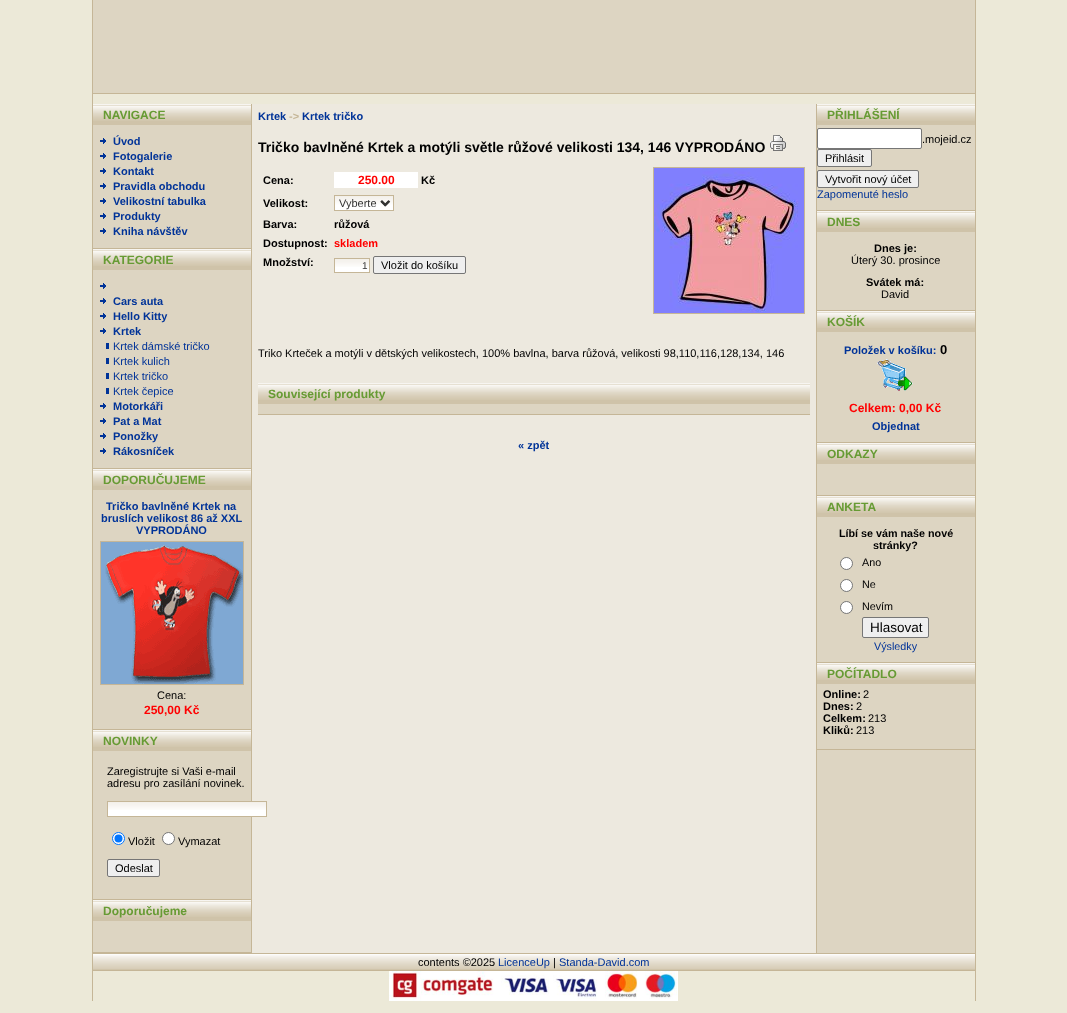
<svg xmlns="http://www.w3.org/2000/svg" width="1067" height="1013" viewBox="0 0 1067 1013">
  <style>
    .t1 { font: bold 12px Liberation Sans; fill: #679b34; }
    .t2 { font: bold 11px Liberation Sans; fill: #003398; }
    .t3 { font: 11px Liberation Sans; fill: #003398; }
    .t4 { font: 11px Liberation Sans; fill: #000; }
    .t5 { font: bold 12px Liberation Sans; fill: #f00; }
    .t6 { font: bold 11px Liberation Sans; fill: #c5b697; }
    .t7 { font: bold 14px Liberation Sans; fill: #000; }
    .t8 { font: bold 11px Liberation Sans; fill: #000; }
    .t9 { font: 11px Liberation Sans; fill: #333; }
    .t10 { font: bold 11px Liberation Sans; fill: #f00; }
    .t11 { font: 10px Liberation Sans; fill: #333; }
    .t12 { font: bold 13px Liberation Sans; fill: #000; }
    .t13 { font: bold 10.75px Liberation Sans; fill: #000; }
    .t14 { font: 10.75px Liberation Sans; fill: #000; }
    .t15 { font: 13.5px Liberation Sans; fill: #000; }
    .t16 { font: 10.75px Liberation Sans; fill: #003398; }
  </style>
  <rect width="100%" height="100%" fill="#ece9d8"/>
  <rect x="92" y="0" width="1" height="1001" fill="#c5b697"/>
  <rect x="93" y="0" width="882" height="93" fill="#ddd5c2"/>
  <rect x="93" y="93" width="882" height="1" fill="#c5b697"/>
  <rect x="251" y="104" width="1" height="849" fill="#c5b697"/>
  <rect x="816" y="104" width="1" height="849" fill="#c5b697"/>
  <rect x="93" y="125" width="158" height="827" fill="#ddd5c2"/>
  <rect x="93" y="121" width="158" height="4" fill="#cfc3a9"/>
  <image x="93" y="104" width="158" height="17" href="images/1.png"/>
  <text x="103" y="119" class="t1">NAVIGACE</text>
  <image x="100" y="138" width="6" height="6" href="images/2.png"/>
  <text x="113" y="145" class="t2">Úvod</text>
  <image x="100" y="153" width="6" height="6" href="images/2.png"/>
  <text x="113" y="160" class="t2">Fotogalerie</text>
  <image x="100" y="168" width="6" height="6" href="images/2.png"/>
  <text x="113" y="175" class="t2">Kontakt</text>
  <image x="100" y="183" width="6" height="6" href="images/2.png"/>
  <text x="113" y="190" class="t2">Pravidla obchodu</text>
  <image x="100" y="198" width="6" height="6" href="images/2.png"/>
  <text x="113" y="205" class="t2">Velikostní tabulka</text>
  <image x="100" y="213" width="6" height="6" href="images/2.png"/>
  <text x="113" y="220" class="t2">Produkty</text>
  <image x="100" y="228" width="6" height="6" href="images/2.png"/>
  <text x="113" y="235" class="t2">Kniha návštěv</text>
  <rect x="93" y="248" width="158" height="1" fill="#c5b697"/>
  <rect x="93" y="266" width="158" height="4" fill="#cfc3a9"/>
  <image x="93" y="249" width="158" height="17" href="images/1.png"/>
  <text x="103" y="264" class="t1">KATEGORIE</text>
  <image x="100" y="283" width="6" height="6" href="images/2.png"/>
  <image x="100" y="298" width="6" height="6" href="images/2.png"/>
  <text x="113" y="305" class="t2">Cars auta</text>
  <image x="100" y="313" width="6" height="6" href="images/2.png"/>
  <text x="113" y="320" class="t2">Hello Kitty</text>
  <image x="100" y="328" width="6" height="6" href="images/2.png"/>
  <text x="113" y="335" class="t2">Krtek</text>
  <rect x="106" y="343" width="3" height="6" fill="#003398"/>
  <text x="113" y="350" class="t3">Krtek dámské tričko</text>
  <rect x="106" y="358" width="3" height="6" fill="#003398"/>
  <text x="113" y="365" class="t3">Krtek kulich</text>
  <rect x="106" y="373" width="3" height="6" fill="#003398"/>
  <text x="113" y="380" class="t3">Krtek tričko</text>
  <rect x="106" y="388" width="3" height="6" fill="#003398"/>
  <text x="113" y="395" class="t3">Krtek čepice</text>
  <image x="100" y="403" width="6" height="6" href="images/2.png"/>
  <text x="113" y="410" class="t2">Motorkáři</text>
  <image x="100" y="418" width="6" height="6" href="images/2.png"/>
  <text x="113" y="425" class="t2">Pat a Mat</text>
  <image x="100" y="433" width="6" height="6" href="images/2.png"/>
  <text x="113" y="440" class="t2">Ponožky</text>
  <image x="100" y="448" width="6" height="6" href="images/2.png"/>
  <text x="113" y="455" class="t2">Rákosníček</text>
  <rect x="93" y="468" width="158" height="1" fill="#c5b697"/>
  <rect x="93" y="486" width="158" height="4" fill="#cfc3a9"/>
  <image x="93" y="469" width="158" height="17" href="images/1.png"/>
  <text x="103" y="484" class="t1">DOPORUČUJEME</text>
  <text x="106" y="510" class="t2">Tričko bavlněné Krtek na</text>
  <text x="101" y="522" class="t2">bruslích velikost 86 až XXL</text>
  <text x="136" y="534" class="t2">VYPRODÁNO</text>
  <rect x="100.5" y="541.5" width="143" height="143" fill="none" stroke="#c5b697"/>
  <image x="101" y="542" width="142" height="142" href="images/3.png"/>
  <text x="157" y="699" class="t4">Cena:</text>
  <text x="144" y="714" class="t5">250,00 Kč</text>
  <rect x="93" y="729" width="158" height="1" fill="#c5b697"/>
  <rect x="93" y="747" width="158" height="4" fill="#cfc3a9"/>
  <image x="93" y="730" width="158" height="17" href="images/1.png"/>
  <text x="103" y="745" class="t1">NOVINKY</text>
  <text x="107" y="775" class="t4">Zaregistrujte si Vaši e-mail</text>
  <text x="107" y="787" class="t4">adresu pro zasílání novinek.</text>
  <rect x="252" y="104" width="564" height="849" fill="#ede9df"/>
  <rect x="108" y="810" width="158" height="6" fill="#fff"/>
  <image x="108" y="802" width="158" height="8" href="images/4.png"/>
  <rect x="107.5" y="801.5" width="159" height="15" fill="none" stroke="#c5b697"/>
  <circle cx="118.5" cy="838.5" r="6" fill="#fff" stroke="#0075ff"/>
  <circle cx="118.5" cy="838.5" r="4" fill="#0075ff"/>
  <text x="128" y="845" class="t4">Vložit</text>
  <circle cx="168.5" cy="838.5" r="6" fill="#fff" stroke="#767676"/>
  <text x="178" y="845" class="t4">Vymazat</text>
  <rect x="107.5" y="859.5" width="52" height="17" rx="1.5" fill="#efefef" stroke="#767676"/>
  <text x="115" y="872" class="t4">Odeslat</text>
  <rect x="93" y="899" width="158" height="1" fill="#c5b697"/>
  <rect x="93" y="917" width="158" height="4" fill="#cfc3a9"/>
  <image x="93" y="900" width="158" height="17" href="images/1.png"/>
  <text x="103" y="915" class="t1">Doporučujeme</text>
  <rect x="93" y="952" width="158" height="1" fill="#c5b697"/>
  <text x="258" y="120" class="t2">Krtek</text>
  <text x="289" y="120" class="t6">-&gt;</text>
  <text x="302" y="120" class="t2">Krtek tričko</text>
  <text x="258" y="152" class="t7">Tričko bavlněné Krtek a motýli světle růžové velikosti 134, 146 VYPRODÁNO</text>
  <image x="770" y="135" width="16" height="16" href="images/5.png"/>
  <text x="263" y="184" class="t8">Cena:</text>
  <rect x="334" y="172" width="84" height="16" fill="#fff"/>
  <text x="358" y="184" class="t5">250.00</text>
  <text x="421" y="184" class="t8">Kč</text>
  <text x="263" y="207" class="t8">Velikost:</text>
  <image x="335" y="196" width="58" height="14" href="images/6.png"/>
  <rect x="334.5" y="195.5" width="59" height="15" fill="none" stroke="#c5b697"/>
  <path d="M381.5 201L385.5 205L389.5 201" fill="none" stroke="#333" stroke-width="2"/>
  <text x="339" y="207" class="t9">Vyberte</text>
  <text x="263" y="228" class="t8">Barva:</text>
  <text x="334" y="228" class="t8">růžová</text>
  <text x="263" y="247" class="t8">Dostupnost:</text>
  <text x="334" y="247" class="t10">skladem</text>
  <text x="263" y="266" class="t8">Množství:</text>
  <rect x="335" y="267" width="34" height="5" fill="#fff"/>
  <image x="335" y="259" width="34" height="8" href="images/7.png"/>
  <rect x="334.5" y="258.5" width="35" height="14" fill="none" stroke="#c5b697"/>
  <text x="362" y="269" class="t11">1</text>
  <rect x="373.5" y="256.5" width="92" height="17" rx="1.5" fill="#efefef" stroke="#767676"/>
  <text x="381" y="269" class="t4">Vložit do košíku</text>
  <rect x="653.5" y="167.5" width="151" height="146" fill="none" stroke="#c5b697"/>
  <image x="654" y="168" width="150" height="145" href="images/8.png"/>
  <text x="258" y="357" class="t4">Triko Krteček a motýli v dětských velikostech, 100% bavlna, barva růžová, velikosti 98,110,116,128,134, 146</text>
  <rect x="258" y="404" width="552" height="10" fill="#ddd5c2"/>
  <rect x="258" y="400" width="552" height="4" fill="#cfc3a9"/>
  <image x="258" y="383" width="552" height="17" href="images/9.png"/>
  <text x="268" y="398" class="t1">Související produkty</text>
  <rect x="258" y="414" width="552" height="1" fill="#c5b697"/>
  <text x="518" y="449" class="t2">« zpět</text>
  <rect x="817" y="125" width="158" height="828" fill="#ddd5c2"/>
  <rect x="817" y="121" width="158" height="4" fill="#cfc3a9"/>
  <image x="817" y="104" width="158" height="17" href="images/1.png"/>
  <text x="827" y="119" class="t1">PŘIHLÁŠENÍ</text>
  <rect x="817.5" y="128.5" width="104" height="20" rx="1.5" fill="#fff" stroke="#767676"/>
  <text x="922" y="143" class="t4">.mojeid.cz</text>
  <rect x="817.5" y="149.5" width="54" height="17" rx="1.5" fill="#efefef" stroke="#767676"/>
  <text x="825" y="162" class="t4">Přihlásit</text>
  <rect x="817.5" y="170.5" width="101" height="17" rx="1.5" fill="#efefef" stroke="#767676"/>
  <text x="825" y="183" class="t4">Vytvořit nový účet</text>
  <text x="817" y="198" class="t3">Zapomenuté heslo</text>
  <rect x="817" y="210" width="158" height="1" fill="#c5b697"/>
  <rect x="817" y="228" width="158" height="4" fill="#cfc3a9"/>
  <image x="817" y="211" width="158" height="17" href="images/1.png"/>
  <text x="827" y="226" class="t1">DNES</text>
  <text x="874" y="252" class="t8">Dnes je:</text>
  <text x="851" y="264" class="t4">Úterý 30. prosince</text>
  <text x="866" y="286" class="t8">Svátek má:</text>
  <text x="881" y="298" class="t4">David</text>
  <rect x="817" y="310" width="158" height="1" fill="#c5b697"/>
  <rect x="817" y="328" width="158" height="4" fill="#cfc3a9"/>
  <image x="817" y="311" width="158" height="17" href="images/1.png"/>
  <text x="827" y="326" class="t1">KOŠÍK</text>
  <text x="844" y="354" class="t2">Položek v košíku:</text>
  <text x="940" y="354" class="t12">0</text>
  <image x="877" y="359" width="36" height="32" href="images/10.png"/>
  <text x="849" y="412" class="t5">Celkem: 0,00 Kč</text>
  <text x="872" y="430" class="t2">Objednat</text>
  <rect x="817" y="442" width="158" height="1" fill="#c5b697"/>
  <rect x="817" y="460" width="158" height="4" fill="#cfc3a9"/>
  <image x="817" y="443" width="158" height="17" href="images/1.png"/>
  <text x="827" y="458" class="t1">ODKAZY</text>
  <rect x="817" y="495" width="158" height="1" fill="#c5b697"/>
  <rect x="817" y="513" width="158" height="4" fill="#cfc3a9"/>
  <image x="817" y="496" width="158" height="17" href="images/1.png"/>
  <text x="827" y="511" class="t1">ANKETA</text>
  <text x="839" y="537" class="t13">Líbí se vám naše nové</text>
  <text x="873" y="549" class="t13">stránky?</text>
  <circle cx="846.5" cy="563.5" r="6" fill="#fff" stroke="#767676"/>
  <text x="862" y="566" class="t14">Ano</text>
  <circle cx="846.5" cy="585.5" r="6" fill="#fff" stroke="#767676"/>
  <text x="862" y="588" class="t14">Ne</text>
  <circle cx="846.5" cy="607.5" r="6" fill="#fff" stroke="#767676"/>
  <text x="862" y="610" class="t14">Nevím</text>
  <rect x="862.5" y="617.5" width="66" height="20" rx="1.5" fill="#efefef" stroke="#767676"/>
  <text x="870" y="632" class="t15">Hlasovat</text>
  <text x="874" y="650" class="t16">Výsledky</text>
  <rect x="817" y="662" width="158" height="1" fill="#c5b697"/>
  <rect x="817" y="680" width="158" height="4" fill="#cfc3a9"/>
  <image x="817" y="663" width="158" height="17" href="images/1.png"/>
  <text x="827" y="678" class="t1">POČÍTADLO</text>
  <text x="823" y="698" class="t8">Online:</text>
  <text x="863" y="698" class="t4">2</text>
  <text x="823" y="710" class="t8">Dnes:</text>
  <text x="856" y="710" class="t4">2</text>
  <text x="823" y="722" class="t8">Celkem:</text>
  <text x="868" y="722" class="t4">213</text>
  <text x="823" y="734" class="t8">Kliků:</text>
  <text x="856" y="734" class="t4">213</text>
  <rect x="817" y="749" width="158" height="1" fill="#c5b697"/>
  <image x="93" y="953" width="882" height="18" href="images/11.png"/>
  <text x="418" y="966" class="t4">contents ©2025</text>
  <text x="498" y="966" class="t3">LicenceUp</text>
  <text x="553" y="966" class="t4">|</text>
  <text x="559" y="966" class="t3">Standa-David.com</text>
  <image x="389" y="971" width="289" height="30" href="images/12.png"/>
  <rect x="975" y="0" width="1" height="1001" fill="#c5b697"/>
</svg>
